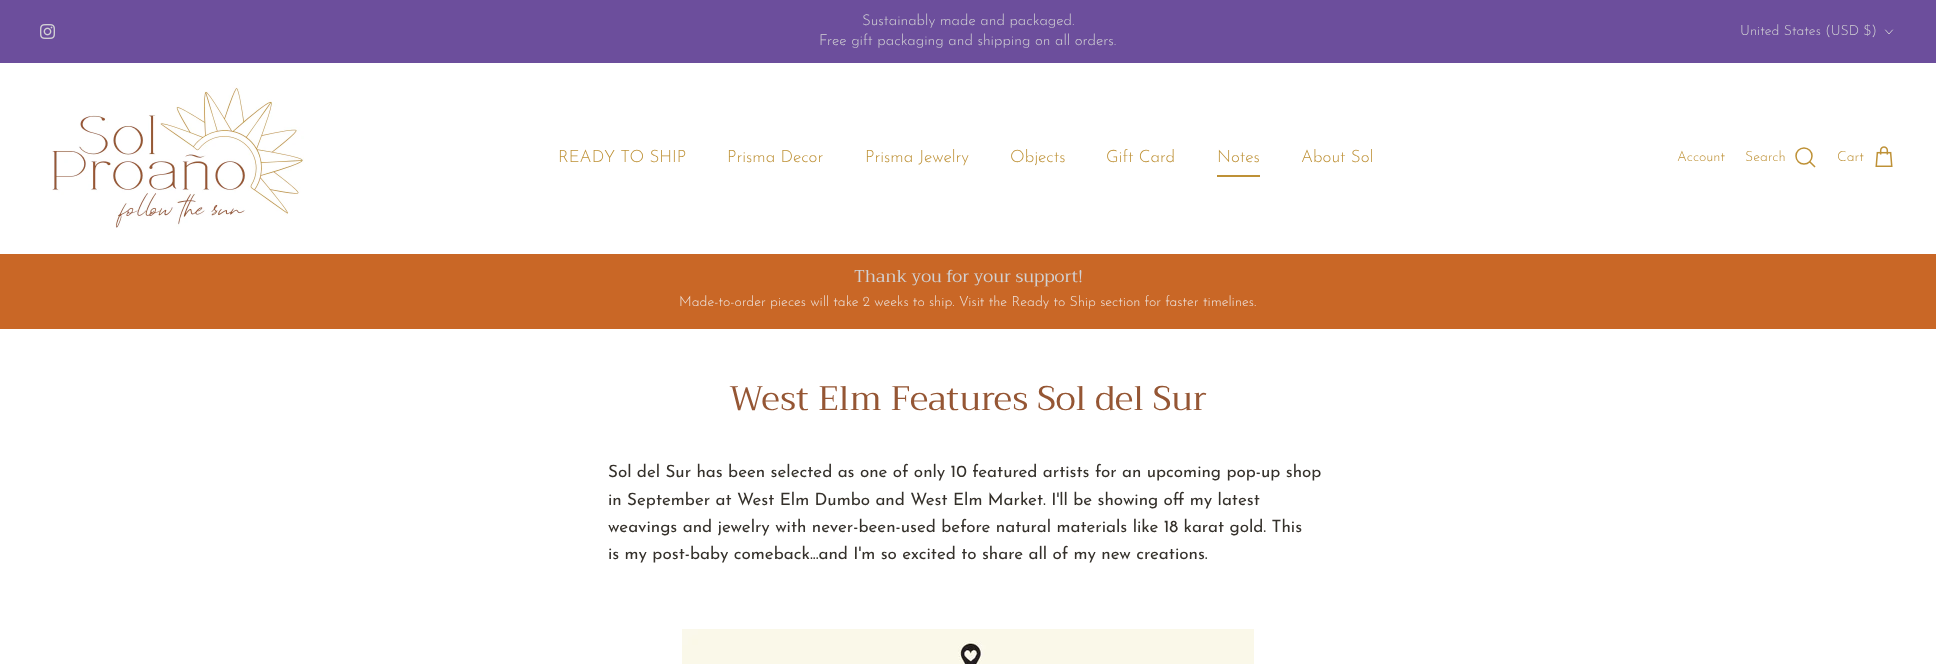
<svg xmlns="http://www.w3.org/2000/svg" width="1936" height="664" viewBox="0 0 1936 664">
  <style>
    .t1 { font: 300 15px Josefin Sans; fill: #d2d2d4; }
    .t2 { font: 300 14px Josefin Sans; fill: #d2d2d4; }
    .t3 { font: 300 17px Josefin Sans; fill: #be9136; }
    .t4 { font: 300 14px Josefin Sans; fill: #be9136; }
    .t5 { font: 17px Trirong; fill: #d2d2d4; }
    .t6 { font: 300 14px Josefin Sans; fill: #eee5e0; }
    .t7 { font: 34px Trirong; fill: #955634; }
    .t8 { font: 17px Josefin Sans; fill: #35312b; }
  </style>
  <rect width="100%" height="100%" fill="#fff"/>
  <rect x="0" y="0" width="1936" height="63" fill="#6c4e9c"/>
  <image x="40" y="24" width="15" height="15" href="images/1.png"/>
  <text x="862" y="25" class="t1">Sustainably made and packaged.</text>
  <text x="819" y="45" class="t1">Free gift packaging and shipping on all orders.</text>
  <text x="1740" y="35" class="t2">United States (USD $)</text>
  <path d="M1885.5 30L1889 34L1892.5 30" fill="none" stroke="#d2d2d4" stroke-width="0.9" stroke-linecap="round" stroke-linejoin="round"/>
  <image x="52" y="87" width="252" height="141" href="images/2.png"/>
  <text x="558" y="162" class="t3">READY TO SHIP</text>
  <text x="727" y="162" class="t3">Prisma Decor</text>
  <text x="865" y="162" class="t3">Prisma Jewelry</text>
  <text x="1010" y="162" class="t3">Objects</text>
  <text x="1106" y="162" class="t3">Gift Card</text>
  <text x="1217" y="162" class="t3">Notes</text>
  <rect x="1217" y="175" width="43" height="2" fill="#be9136"/>
  <text x="1301" y="162" class="t3">About Sol</text>
  <text x="1677" y="161" class="t4">Account</text>
  <text x="1745" y="161" class="t4">Search</text>
  <circle cx="1804" cy="156" r="8" fill="none" stroke="#be9136" stroke-width="1.5"/>
  <path d="M1810 162L1814.5 166.5" fill="none" stroke="#be9136" stroke-width="1.5" stroke-linecap="square"/>
  <text x="1837" y="161" class="t4">Cart</text>
  <image x="1875" y="146" width="18" height="21" href="images/3.png"/>
  <rect x="0" y="254" width="1936" height="75" fill="#c96726"/>
  <text x="854" y="282" class="t5">Thank you for your support!</text>
  <text x="679" y="306" class="t6">Made-to-order pieces will take 2 weeks to ship. Visit the Ready to Ship section for faster timelines.</text>
  <text x="729" y="410" class="t7">West Elm Features Sol del Sur</text>
  <text x="608" y="477" class="t8">Sol del Sur has been selected as one of only 10 featured artists for an upcoming pop-up shop</text>
  <text x="608" y="505" class="t8">in September at West Elm Dumbo and West Elm Market. I'll be showing off my latest</text>
  <text x="608" y="532" class="t8">weavings and jewelry with never-been-used before natural materials like 18 karat gold. This</text>
  <text x="608" y="559" class="t8">is my post-baby comeback...and I'm so excited to share all of my new creations.</text>
  <image x="682" y="629" width="572" height="35" href="images/4.png"/>
</svg>
